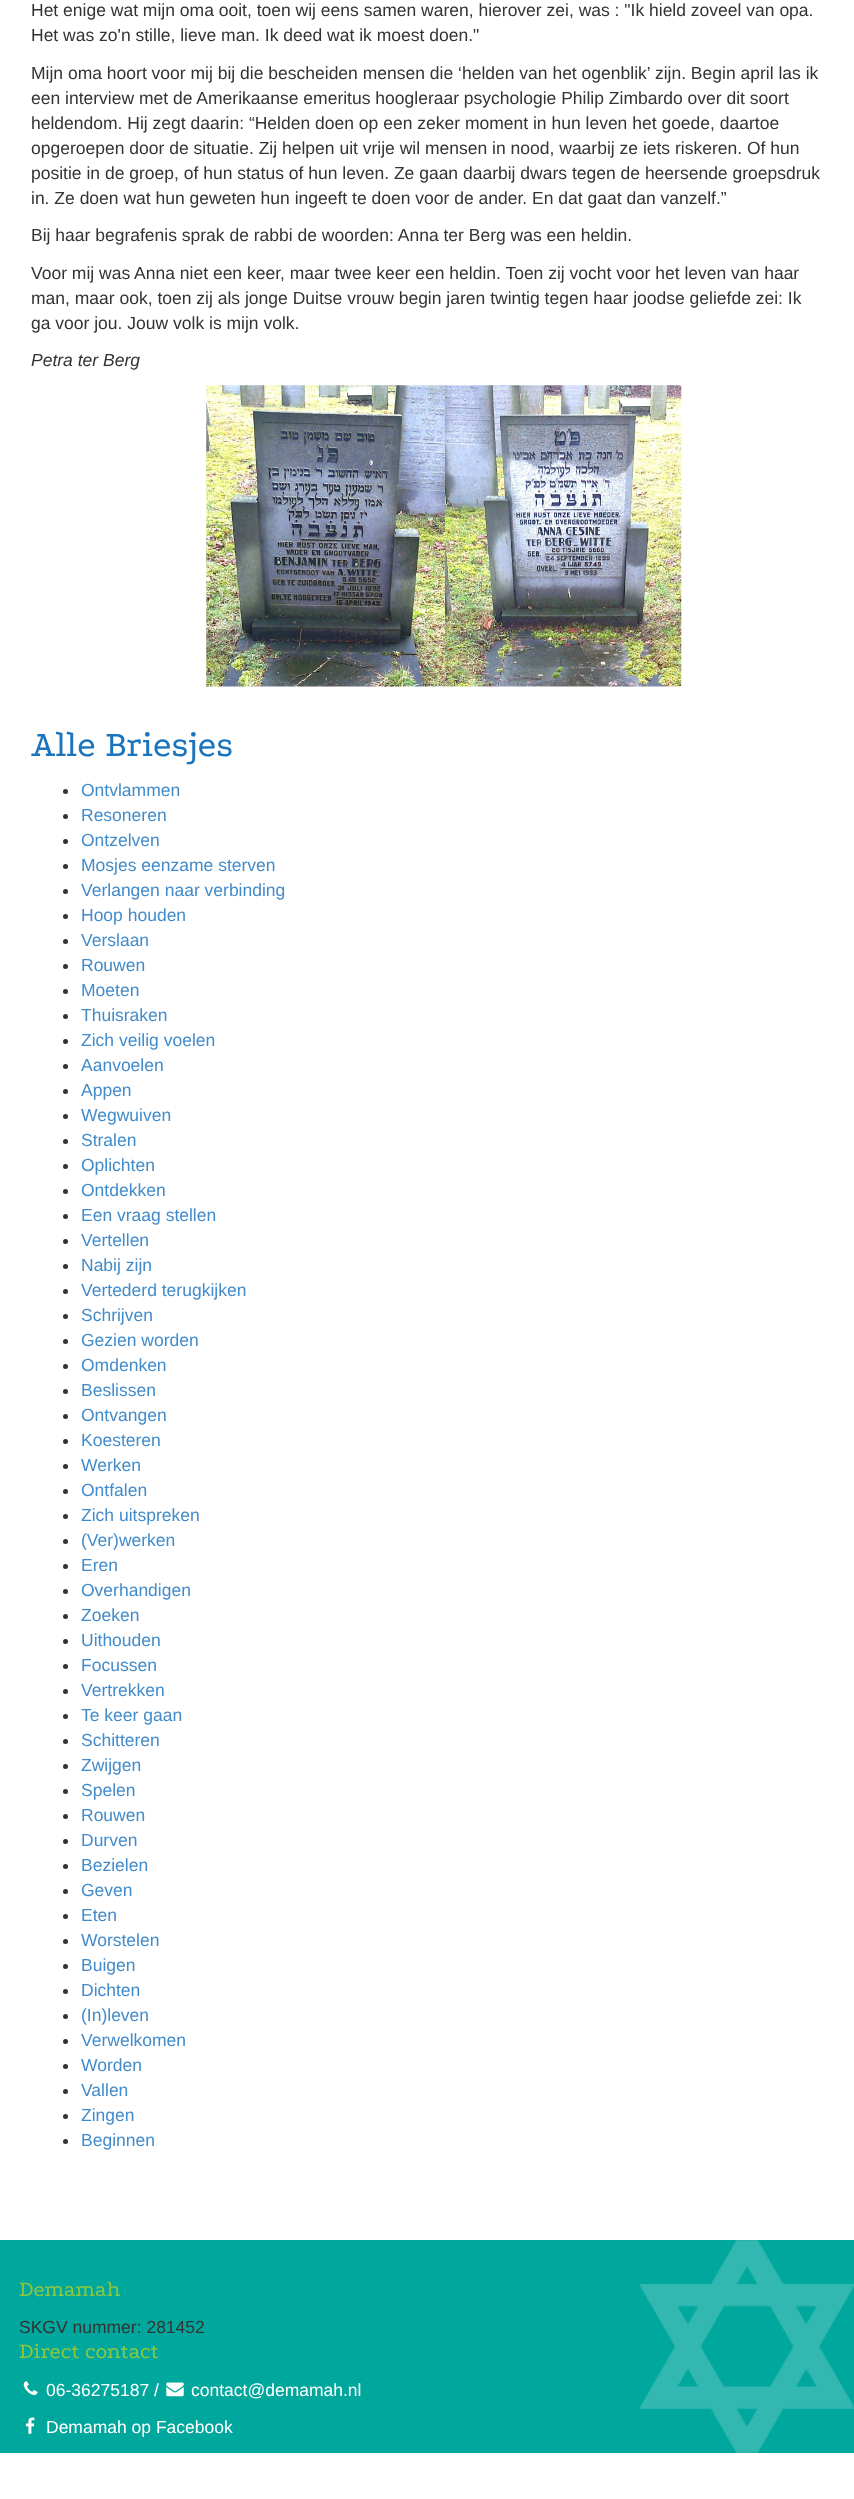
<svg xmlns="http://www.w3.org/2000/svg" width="854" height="2499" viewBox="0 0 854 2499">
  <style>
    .t1 { font: 17.5px Liberation Sans; fill: #333; }
    .t2 { font: italic 17.5px Liberation Sans; fill: #333; }
    .t3 { font: 37.5px Podkova; fill: #1c75bc; }
    .t4 { font: 17.5px Liberation Sans; fill: #428bca; }
    .t5 { font: 22.5px Podkova; fill: #8dc63f; }
    .t6 { font: 17.5px Liberation Sans; fill: #fff; }
  </style>
  <rect width="100%" height="100%" fill="#fff"/>
  <text x="31" y="16" class="t1">Het enige wat mijn oma ooit, toen wij eens samen waren, hierover zei, was : "Ik hield zoveel van opa.</text>
  <text x="31" y="41" class="t1">Het was zo'n stille, lieve man. Ik deed wat ik moest doen."</text>
  <text x="31" y="79" class="t1">Mijn oma hoort voor mij bij die bescheiden mensen die ‘helden van het ogenblik’ zijn. Begin april las ik</text>
  <text x="31" y="104" class="t1">een interview met de Amerikaanse emeritus hoogleraar psychologie Philip Zimbardo over dit soort</text>
  <text x="31" y="129" class="t1">heldendom. Hij zegt daarin: “Helden doen op een zeker moment in hun leven het goede, daartoe</text>
  <text x="31" y="154" class="t1">opgeroepen door de situatie. Zij helpen uit vrije wil mensen in nood, waarbij ze iets riskeren. Of hun</text>
  <text x="31" y="179" class="t1">positie in de groep, of hun status of hun leven. Ze gaan daarbij dwars tegen de heersende groepsdruk</text>
  <text x="31" y="204" class="t1">in. Ze doen wat hun geweten hun ingeeft te doen voor de ander. En dat gaat dan vanzelf.”</text>
  <text x="31" y="241" class="t1">Bij haar begrafenis sprak de rabbi de woorden: Anna ter Berg was een heldin.</text>
  <text x="31" y="279" class="t1">Voor mij was Anna niet een keer, maar twee keer een heldin. Toen zij vocht voor het leven van haar</text>
  <text x="31" y="304" class="t1">man, maar ook, toen zij als jonge Duitse vrouw begin jaren twintig tegen haar joodse geliefde zei: Ik</text>
  <text x="31" y="329" class="t1">ga voor jou. Jouw volk is mijn volk.</text>
  <text x="31" y="366" class="t2">Petra ter Berg</text>
  <image x="206" y="385" width="239" height="302" href="images/1.png"/>
  <image x="445" y="385" width="237" height="302" href="images/2.png"/>
  <text x="31" y="756" class="t3">Alle Briesjes</text>
  <circle cx="65.5" cy="791.5" r="2.5" fill="#333"/>
  <text x="81" y="796" class="t4">Ontvlammen</text>
  <circle cx="65.5" cy="816.5" r="2.5" fill="#333"/>
  <text x="81" y="821" class="t4">Resoneren</text>
  <circle cx="65.5" cy="841.5" r="2.5" fill="#333"/>
  <text x="81" y="846" class="t4">Ontzelven</text>
  <circle cx="65.5" cy="866.5" r="2.5" fill="#333"/>
  <text x="81" y="871" class="t4">Mosjes eenzame sterven</text>
  <circle cx="65.5" cy="891.5" r="2.5" fill="#333"/>
  <text x="81" y="896" class="t4">Verlangen naar verbinding</text>
  <circle cx="65.5" cy="916.5" r="2.5" fill="#333"/>
  <text x="81" y="921" class="t4">Hoop houden</text>
  <circle cx="65.5" cy="941.5" r="2.5" fill="#333"/>
  <text x="81" y="946" class="t4">Verslaan</text>
  <circle cx="65.5" cy="966.5" r="2.5" fill="#333"/>
  <text x="81" y="971" class="t4">Rouwen</text>
  <circle cx="65.5" cy="991.5" r="2.5" fill="#333"/>
  <text x="81" y="996" class="t4">Moeten</text>
  <circle cx="65.5" cy="1016.5" r="2.5" fill="#333"/>
  <text x="81" y="1021" class="t4">Thuisraken</text>
  <circle cx="65.5" cy="1041.5" r="2.5" fill="#333"/>
  <text x="81" y="1046" class="t4">Zich veilig voelen</text>
  <circle cx="65.5" cy="1066.5" r="2.5" fill="#333"/>
  <text x="81" y="1071" class="t4">Aanvoelen</text>
  <circle cx="65.5" cy="1091.5" r="2.5" fill="#333"/>
  <text x="81" y="1096" class="t4">Appen</text>
  <circle cx="65.5" cy="1116.5" r="2.5" fill="#333"/>
  <text x="81" y="1121" class="t4">Wegwuiven</text>
  <circle cx="65.5" cy="1141.5" r="2.5" fill="#333"/>
  <text x="81" y="1146" class="t4">Stralen</text>
  <circle cx="65.5" cy="1166.5" r="2.5" fill="#333"/>
  <text x="81" y="1171" class="t4">Oplichten</text>
  <circle cx="65.5" cy="1191.5" r="2.5" fill="#333"/>
  <text x="81" y="1196" class="t4">Ontdekken</text>
  <circle cx="65.5" cy="1216.5" r="2.5" fill="#333"/>
  <text x="81" y="1221" class="t4">Een vraag stellen</text>
  <circle cx="65.5" cy="1241.5" r="2.5" fill="#333"/>
  <text x="81" y="1246" class="t4">Vertellen</text>
  <circle cx="65.5" cy="1266.5" r="2.5" fill="#333"/>
  <text x="81" y="1271" class="t4">Nabij zijn</text>
  <circle cx="65.5" cy="1291.5" r="2.5" fill="#333"/>
  <text x="81" y="1296" class="t4">Vertederd terugkijken</text>
  <circle cx="65.5" cy="1316.5" r="2.5" fill="#333"/>
  <text x="81" y="1321" class="t4">Schrijven</text>
  <circle cx="65.5" cy="1341.5" r="2.5" fill="#333"/>
  <text x="81" y="1346" class="t4">Gezien worden</text>
  <circle cx="65.5" cy="1366.5" r="2.5" fill="#333"/>
  <text x="81" y="1371" class="t4">Omdenken</text>
  <circle cx="65.5" cy="1391.5" r="2.5" fill="#333"/>
  <text x="81" y="1396" class="t4">Beslissen</text>
  <circle cx="65.5" cy="1416.5" r="2.5" fill="#333"/>
  <text x="81" y="1421" class="t4">Ontvangen</text>
  <circle cx="65.5" cy="1441.5" r="2.5" fill="#333"/>
  <text x="81" y="1446" class="t4">Koesteren</text>
  <circle cx="65.5" cy="1466.5" r="2.5" fill="#333"/>
  <text x="81" y="1471" class="t4">Werken</text>
  <circle cx="65.5" cy="1491.5" r="2.5" fill="#333"/>
  <text x="81" y="1496" class="t4">Ontfalen</text>
  <circle cx="65.5" cy="1516.5" r="2.5" fill="#333"/>
  <text x="81" y="1521" class="t4">Zich uitspreken</text>
  <circle cx="65.5" cy="1541.5" r="2.5" fill="#333"/>
  <text x="81" y="1546" class="t4">(Ver)werken</text>
  <circle cx="65.5" cy="1566.5" r="2.5" fill="#333"/>
  <text x="81" y="1571" class="t4">Eren</text>
  <circle cx="65.5" cy="1591.5" r="2.5" fill="#333"/>
  <text x="81" y="1596" class="t4">Overhandigen</text>
  <circle cx="65.5" cy="1616.5" r="2.5" fill="#333"/>
  <text x="81" y="1621" class="t4">Zoeken</text>
  <circle cx="65.5" cy="1641.5" r="2.5" fill="#333"/>
  <text x="81" y="1646" class="t4">Uithouden</text>
  <circle cx="65.5" cy="1666.5" r="2.5" fill="#333"/>
  <text x="81" y="1671" class="t4">Focussen</text>
  <circle cx="65.5" cy="1691.5" r="2.5" fill="#333"/>
  <text x="81" y="1696" class="t4">Vertrekken</text>
  <circle cx="65.5" cy="1716.5" r="2.5" fill="#333"/>
  <text x="81" y="1721" class="t4">Te keer gaan</text>
  <circle cx="65.5" cy="1741.5" r="2.5" fill="#333"/>
  <text x="81" y="1746" class="t4">Schitteren</text>
  <circle cx="65.5" cy="1766.5" r="2.5" fill="#333"/>
  <text x="81" y="1771" class="t4">Zwijgen</text>
  <circle cx="65.5" cy="1791.5" r="2.5" fill="#333"/>
  <text x="81" y="1796" class="t4">Spelen</text>
  <circle cx="65.5" cy="1816.5" r="2.5" fill="#333"/>
  <text x="81" y="1821" class="t4">Rouwen</text>
  <circle cx="65.5" cy="1841.5" r="2.5" fill="#333"/>
  <text x="81" y="1846" class="t4">Durven</text>
  <circle cx="65.5" cy="1866.5" r="2.5" fill="#333"/>
  <text x="81" y="1871" class="t4">Bezielen</text>
  <circle cx="65.5" cy="1891.5" r="2.5" fill="#333"/>
  <text x="81" y="1896" class="t4">Geven</text>
  <circle cx="65.5" cy="1916.5" r="2.5" fill="#333"/>
  <text x="81" y="1921" class="t4">Eten</text>
  <circle cx="65.5" cy="1941.5" r="2.5" fill="#333"/>
  <text x="81" y="1946" class="t4">Worstelen</text>
  <circle cx="65.5" cy="1966.5" r="2.5" fill="#333"/>
  <text x="81" y="1971" class="t4">Buigen</text>
  <circle cx="65.5" cy="1991.5" r="2.5" fill="#333"/>
  <text x="81" y="1996" class="t4">Dichten</text>
  <circle cx="65.5" cy="2016.5" r="2.5" fill="#333"/>
  <text x="81" y="2021" class="t4">(In)leven</text>
  <circle cx="65.5" cy="2041.5" r="2.5" fill="#333"/>
  <text x="81" y="2046" class="t4">Verwelkomen</text>
  <circle cx="65.5" cy="2066.5" r="2.5" fill="#333"/>
  <text x="81" y="2071" class="t4">Worden</text>
  <circle cx="65.5" cy="2091.5" r="2.5" fill="#333"/>
  <text x="81" y="2096" class="t4">Vallen</text>
  <circle cx="65.5" cy="2116.5" r="2.5" fill="#333"/>
  <text x="81" y="2121" class="t4">Zingen</text>
  <circle cx="65.5" cy="2141.5" r="2.5" fill="#333"/>
  <text x="81" y="2146" class="t4">Beginnen</text>
  <rect x="0" y="2240" width="854" height="213" fill="#00a79d"/>
  <image x="638" y="2240" width="216" height="213" href="images/3.png"/>
  <text x="19" y="2296" class="t5">Demamah</text>
  <text x="19" y="2333" class="t1">SKGV nummer: 281452</text>
  <text x="19" y="2358" class="t5">Direct contact</text>
  <image x="23" y="2381" width="15" height="14" href="images/4.png"/>
  <text x="46" y="2396" class="t6">06-36275187 /</text>
  <image x="166" y="2382" width="18" height="15" href="images/5.png"/>
  <text x="191" y="2396" class="t6">contact@demamah.nl</text>
  <image x="25" y="2417" width="10" height="17" href="images/6.png"/>
  <text x="46" y="2433" class="t6">Demamah op Facebook</text>
</svg>
